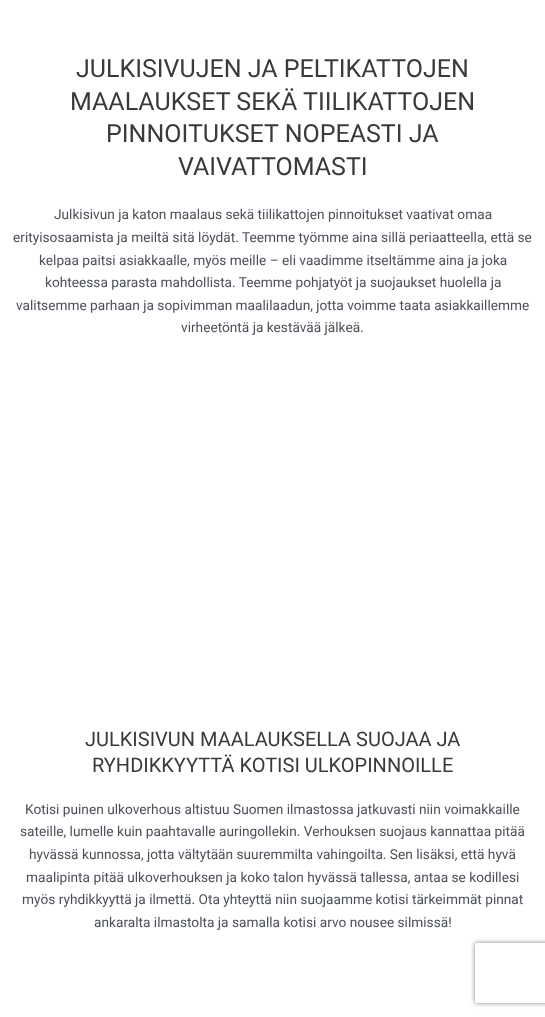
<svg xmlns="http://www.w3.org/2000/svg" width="545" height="1017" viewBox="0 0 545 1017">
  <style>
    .t1 { font: 25px Roboto; fill: #3a3a3a; }
    .t2 { font: 13.7px Roboto; fill: #4b4f58; }
    .t3 { font: 20px Roboto; fill: #3a3a3a; }
  </style>
  <defs>
    <clipPath id="clip1"><path d="M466 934H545V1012H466ZM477 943H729C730 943 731 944 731 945V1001C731 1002 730 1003 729 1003H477C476 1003 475 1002 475 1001V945C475 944 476 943 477 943Z" clip-rule="evenodd"/></clipPath>
  </defs>
  <rect width="100%" height="100%" fill="#fff"/>
  <text x="76" y="77" class="t1">JULKISIVUJEN JA PELTIKATTOJEN</text>
  <text x="70" y="110" class="t1">MAALAUKSET SEKÄ TIILIKATTOJEN</text>
  <text x="106" y="142" class="t1">PINNOITUKSET NOPEASTI JA</text>
  <text x="178" y="175" class="t1">VAIVATTOMASTI</text>
  <text x="54" y="219" class="t2">Julkisivun ja katon maalaus sekä tiilikattojen pinnoitukset vaativat omaa</text>
  <text x="13" y="242" class="t2">erityisosaamista ja meiltä sitä löydät. Teemme työmme aina sillä periaatteella, että se</text>
  <text x="39" y="265" class="t2">kelpaa paitsi asiakkaalle, myös meille – eli vaadimme itseltämme aina ja joka</text>
  <text x="45" y="287" class="t2">kohteessa parasta mahdollista. Teemme pohjatyöt ja suojaukset huolella ja</text>
  <text x="16" y="310" class="t2">valitsemme parhaan ja sopivimman maalilaadun, jotta voimme taata asiakkaillemme</text>
  <text x="181" y="332" class="t2">virheetöntä ja kestävää jälkeä.</text>
  <text x="85" y="746" class="t3">JULKISIVUN MAALAUKSELLA SUOJAA JA</text>
  <text x="92" y="772" class="t3">RYHDIKKYYTTÄ KOTISI ULKOPINNOILLE</text>
  <text x="25" y="814" class="t2">Kotisi puinen ulkoverhous altistuu Suomen ilmastossa jatkuvasti niin voimakkaille</text>
  <text x="20" y="836" class="t2">sateille, lumelle kuin paahtavalle auringollekin. Verhouksen suojaus kannattaa pitää</text>
  <text x="29" y="859" class="t2">hyvässä kunnossa, jotta vältytään suuremmilta vahingoilta. Sen lisäksi, että hyvä</text>
  <text x="26" y="882" class="t2">maalipinta pitää ulkoverhouksen ja koko talon hyvässä tallessa, antaa se kodillesi</text>
  <text x="22" y="904" class="t2">myös ryhdikkyyttä ja ilmettä. Ota yhteyttä niin suojaamme kotisi tärkeimmät pinnat</text>
  <text x="94" y="927" class="t2">ankaralta ilmastolta ja samalla kotisi arvo nousee silmissä!</text>
  <g clip-path="url(#clip1)">
    <rect x="475" y="943" width="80" height="60" rx="2" fill="#808080" filter="blur(2.5px)"/>
  </g>
</svg>
